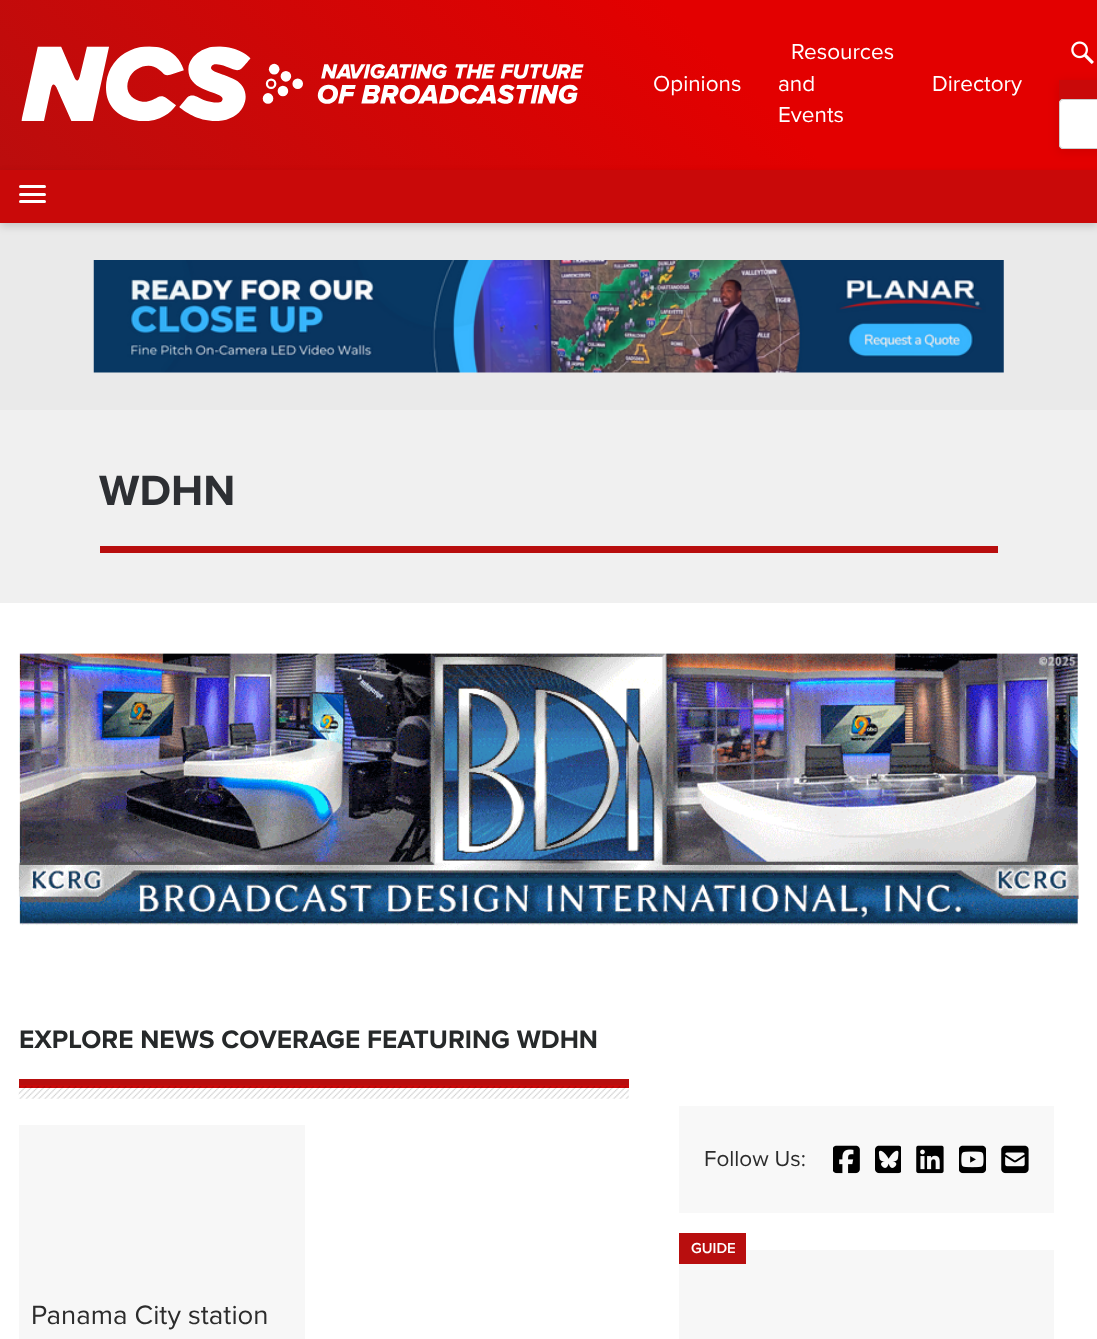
<svg xmlns="http://www.w3.org/2000/svg" width="1097" height="1339" viewBox="0 0 1097 1339">
  <style>
    .t1 { font: 22.5px Proxima Nova; fill: #fff; }
    .t2 { font: bold 44px Proxima Nova; fill: #2d2f33; }
    .t3 { font: bold 26.25px Proxima Nova; fill: #26292a; }
    .t4 { font: 27.5px Proxima Nova; fill: #2c2c2c; }
    .t5 { font: 22.5px Proxima Nova; fill: #2c2c2c; }
    .t6 { font: 600 15px Proxima Nova; fill: #fff; }
  </style>
  <defs>
    <linearGradient id="g1" gradientUnits="userSpaceOnUse" x1="219" y1="441" x2="879" y2="-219"><stop offset="0" stop-color="#b80e0e"/><stop offset="0.67" stop-color="#e30000"/></linearGradient>
  </defs>
  <rect width="100%" height="100%" fill="#fff"/>
  <rect x="0" y="0" width="1097" height="170" fill="url(#g1)"/>
  <image x="21" y="46" width="563" height="75" href="images/1.png"/>
  <text x="653" y="91" class="t1">Opinions</text>
  <text x="791" y="59" class="t1">Resources</text>
  <text x="778" y="91" class="t1">and</text>
  <text x="778" y="122" class="t1">Events</text>
  <text x="932" y="91" class="t1">Directory</text>
  <image x="1071" y="41" width="23" height="23" href="images/2.png"/>
  <rect x="1059" y="83" width="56" height="68" fill="#0000001a" filter="blur(6px)"/>
  <rect x="1059" y="80" width="38" height="69" fill="#c90909"/>
  <path d="M1063 99H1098V149H1063C1061 149 1059 147 1059 145V103C1059 101 1061 99 1063 99Z" fill="#fff"/>
  <rect x="1059.5" y="99.5" width="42" height="49" rx="3.5" fill="none" stroke="#ccc"/>
  <rect x="0" y="223" width="1097" height="187" fill="#eaeaea"/>
  <rect x="0" y="174" width="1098" height="52" fill="#00000029" filter="blur(4px)"/>
  <rect x="0" y="170" width="1097" height="53" fill="#c90909"/>
  <rect x="19" y="185" width="27" height="3" rx="1.5" fill="#fff"/>
  <rect x="19" y="193" width="27" height="3" rx="1.5" fill="#fff"/>
  <rect x="19" y="200" width="27" height="3" rx="1.5" fill="#fff"/>
  <image x="93" y="260" width="911" height="113" href="images/3.png"/>
  <rect x="0" y="410" width="1097" height="193" fill="#f0f0f0"/>
  <rect x="100" y="546" width="898" height="7" fill="#b80e0e"/>
  <text x="99" y="505" class="t2">WDHN</text>
  <image x="18" y="653" width="1061" height="273" href="images/4.png"/>
  <rect x="19" y="1085" width="610" height="3" fill="#c9090a"/>
  <rect x="19" y="1079" width="610" height="6" fill="#b80e0e"/>
  <text x="19" y="1048" class="t3">EXPLORE NEWS COVERAGE FEATURING WDHN</text>
  <image x="18" y="1086" width="611" height="13" href="images/5.png"/>
  <rect x="19" y="1125" width="286" height="214" fill="#f7f7f7"/>
  <text x="31" y="1324" class="t4">Panama City station</text>
  <rect x="679" y="1106" width="375" height="107" fill="#f8f8f8"/>
  <text x="704" y="1166" class="t5">Follow Us:</text>
  <image x="833" y="1145" width="27" height="29" href="images/6.png"/>
  <image x="875" y="1145" width="26" height="29" href="images/7.png"/>
  <image x="916" y="1145" width="28" height="29" href="images/8.png"/>
  <image x="959" y="1145" width="27" height="29" href="images/9.png"/>
  <image x="1001" y="1145" width="28" height="29" href="images/10.png"/>
  <rect x="679" y="1250" width="375" height="89" fill="#f7f7f7"/>
  <rect x="679" y="1233" width="67" height="31" fill="#b80e0e"/>
  <text x="691" y="1253" class="t6">GUIDE</text>
</svg>
